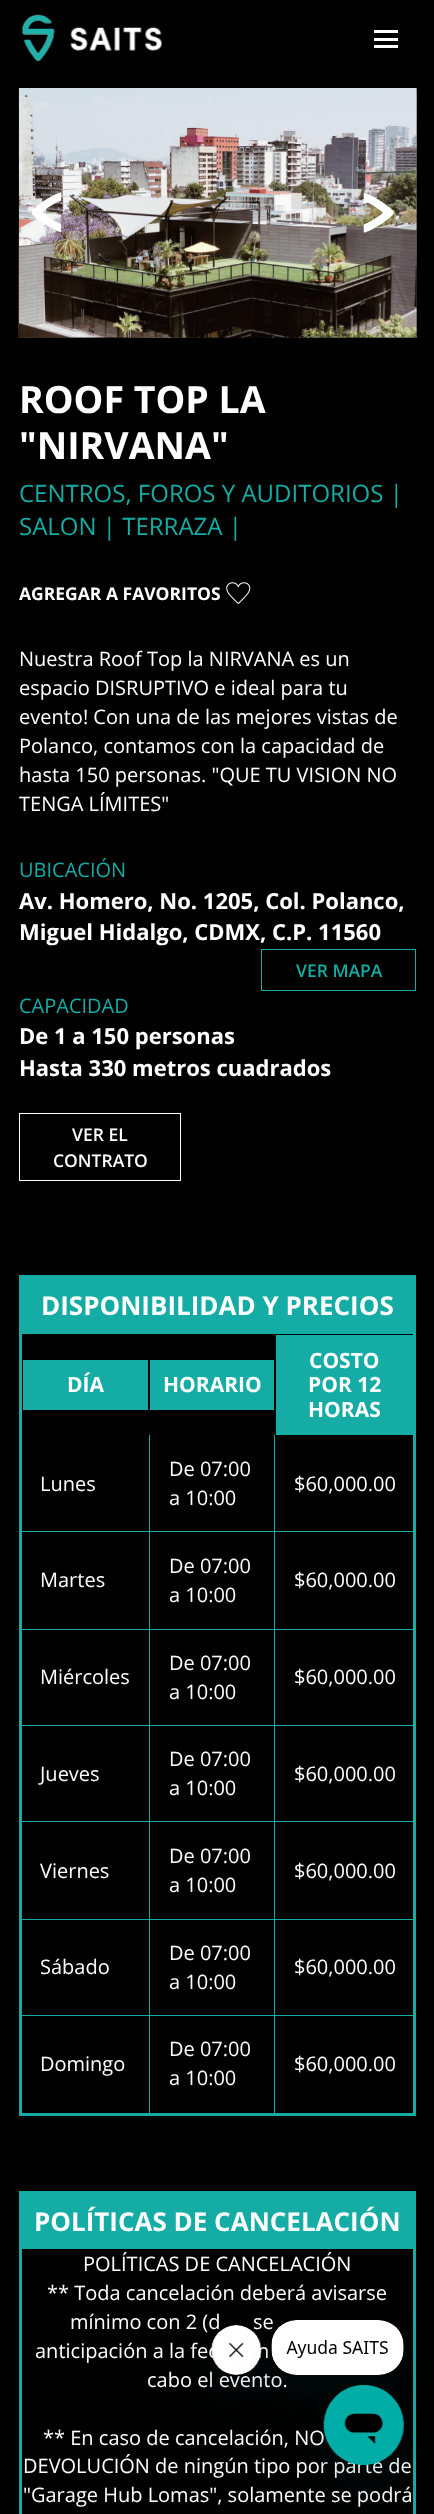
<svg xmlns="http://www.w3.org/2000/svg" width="434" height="2514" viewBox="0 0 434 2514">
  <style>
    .t1 { font: bold 37.5px Open Sans; fill: #fff; }
    .t2 { font: 24px Open Sans; fill: #14aca5; }
    .t3 { font: bold 17.5px Open Sans; fill: #fff; }
    .t4 { font: 20px Open Sans; fill: #fff; }
    .t5 { font: 20px Open Sans; fill: #14aca5; }
    .t6 { font: bold 22px Open Sans; fill: #fff; }
    .t7 { font: 600 17.5px Open Sans; fill: #14aca5; }
    .t8 { font: 600 17.5px Open Sans; fill: #fff; }
    .t9 { font: bold 26px Open Sans; fill: #fff; }
    .t10 { font: bold 21px Open Sans; fill: #fff; }
  </style>
  <rect width="100%" height="100%" fill="#000"/>
  <image x="22" y="14" width="140" height="48" href="images/1.png"/>
  <rect x="374" y="30" width="24" height="3" fill="#fff"/>
  <rect x="374" y="38" width="24" height="3" fill="#fff"/>
  <rect x="374" y="45" width="24" height="3" fill="#fff"/>
  <image x="18" y="88" width="17" height="250" href="images/2.png"/>
  <image x="19" y="88" width="398" height="250" href="images/3.png"/>
  <image x="19" y="88" width="398" height="250" href="images/4.png"/>
  <image x="31" y="192" width="31" height="41" href="images/5.png"/>
  <image x="363" y="192" width="31" height="41" href="images/6.png"/>
  <text x="19" y="413" class="t1">ROOF TOP LA</text>
  <text x="19" y="459" class="t1">"NIRVANA"</text>
  <text x="19" y="502" class="t2">CENTROS, FOROS Y AUDITORIOS |</text>
  <text x="19" y="535" class="t2">SALON | TERRAZA |</text>
  <text x="19" y="600" class="t3">AGREGAR A FAVORITOS</text>
  <image x="226" y="582" width="25" height="23" href="images/7.png"/>
  <text x="19" y="666" class="t4">Nuestra Roof Top la NIRVANA es un</text>
  <text x="19" y="695" class="t4">espacio DISRUPTIVO e ideal para tu</text>
  <text x="19" y="724" class="t4">evento! Con una de las mejores vistas de</text>
  <text x="19" y="753" class="t4">Polanco, contamos con la capacidad de</text>
  <text x="19" y="782" class="t4">hasta 150 personas. "QUE TU VISION NO</text>
  <text x="19" y="811" class="t4">TENGA LÍMITES"</text>
  <text x="19" y="877" class="t5">UBICACIÓN</text>
  <text x="19" y="909" class="t6">Av. Homero, No. 1205, Col. Polanco,</text>
  <text x="19" y="940" class="t6">Miguel Hidalgo, CDMX, C.P. 11560</text>
  <rect x="261.5" y="949.5" width="154" height="41" fill="none" stroke="#14aca5"/>
  <text x="296" y="977" class="t7">VER MAPA</text>
  <text x="19" y="1013" class="t5">CAPACIDAD</text>
  <text x="19" y="1044" class="t6">De 1 a 150 personas</text>
  <text x="19" y="1076" class="t6">Hasta 330 metros cuadrados</text>
  <rect x="19.5" y="1113.5" width="161" height="67" fill="none" stroke="#fff"/>
  <text x="72" y="1141" class="t8">VER EL</text>
  <text x="53" y="1167" class="t8">CONTRATO</text>
  <rect x="20.5" y="1276.5" width="394" height="838" fill="none" stroke="#14aca5" stroke-width="3"/>
  <rect x="22" y="1278" width="391" height="56" fill="#14aca5"/>
  <text x="41" y="1315" class="t9">DISPONIBILIDAD Y PRECIOS</text>
  <rect x="23" y="1360" width="125" height="50" fill="#14aca5"/>
  <text x="67" y="1392" class="t10">DÍA</text>
  <rect x="150" y="1360" width="124" height="50" fill="#14aca5"/>
  <text x="163" y="1392" class="t10">HORARIO</text>
  <rect x="276" y="1335" width="137" height="100" fill="#14aca5"/>
  <text x="309" y="1368" class="t10">COSTO</text>
  <text x="308" y="1392" class="t10">POR 12</text>
  <text x="308" y="1417" class="t10">HORAS</text>
  <rect x="274" y="2015" width="1" height="99" fill="#14aca5"/>
  <rect x="274" y="2015" width="140" height="1" fill="#14aca5"/>
  <rect x="274" y="1919" width="1" height="97" fill="#14aca5"/>
  <rect x="274" y="1919" width="140" height="1" fill="#14aca5"/>
  <rect x="274" y="1821" width="1" height="99" fill="#14aca5"/>
  <rect x="274" y="1821" width="140" height="1" fill="#14aca5"/>
  <rect x="274" y="1725" width="1" height="98" fill="#14aca5"/>
  <rect x="274" y="1725" width="140" height="1" fill="#14aca5"/>
  <rect x="274" y="1629" width="1" height="97" fill="#14aca5"/>
  <rect x="274" y="1629" width="140" height="1" fill="#14aca5"/>
  <rect x="274" y="1531" width="1" height="99" fill="#14aca5"/>
  <rect x="274" y="1531" width="140" height="1" fill="#14aca5"/>
  <rect x="274" y="1435" width="1" height="98" fill="#14aca5"/>
  <rect x="149" y="2015" width="1" height="99" fill="#14aca5"/>
  <rect x="149" y="2015" width="126" height="1" fill="#14aca5"/>
  <rect x="149" y="1919" width="1" height="97" fill="#14aca5"/>
  <rect x="149" y="1919" width="126" height="1" fill="#14aca5"/>
  <rect x="149" y="1821" width="1" height="99" fill="#14aca5"/>
  <rect x="149" y="1821" width="126" height="1" fill="#14aca5"/>
  <rect x="149" y="1725" width="1" height="98" fill="#14aca5"/>
  <rect x="149" y="1725" width="126" height="1" fill="#14aca5"/>
  <rect x="149" y="1629" width="1" height="97" fill="#14aca5"/>
  <rect x="149" y="1629" width="126" height="1" fill="#14aca5"/>
  <rect x="149" y="1531" width="1" height="99" fill="#14aca5"/>
  <rect x="149" y="1531" width="126" height="1" fill="#14aca5"/>
  <rect x="149" y="1435" width="1" height="98" fill="#14aca5"/>
  <rect x="21" y="1531" width="129" height="1" fill="#14aca5"/>
  <text x="40" y="1491" class="t4">Lunes</text>
  <text x="169" y="1476" class="t4">De 07:00</text>
  <text x="169" y="1505" class="t4">a 10:00</text>
  <text x="294" y="1491" class="t4">$60,000.00</text>
  <rect x="21" y="1629" width="129" height="1" fill="#14aca5"/>
  <text x="40" y="1587" class="t4">Martes</text>
  <text x="169" y="1573" class="t4">De 07:00</text>
  <text x="169" y="1602" class="t4">a 10:00</text>
  <text x="294" y="1587" class="t4">$60,000.00</text>
  <rect x="21" y="1725" width="129" height="1" fill="#14aca5"/>
  <text x="40" y="1684" class="t4">Miércoles</text>
  <text x="169" y="1670" class="t4">De 07:00</text>
  <text x="169" y="1699" class="t4">a 10:00</text>
  <text x="294" y="1684" class="t4">$60,000.00</text>
  <rect x="21" y="1821" width="129" height="1" fill="#14aca5"/>
  <text x="40" y="1781" class="t4">Jueves</text>
  <text x="169" y="1766" class="t4">De 07:00</text>
  <text x="169" y="1795" class="t4">a 10:00</text>
  <text x="294" y="1781" class="t4">$60,000.00</text>
  <rect x="21" y="1919" width="129" height="1" fill="#14aca5"/>
  <text x="40" y="1878" class="t4">Viernes</text>
  <text x="169" y="1863" class="t4">De 07:00</text>
  <text x="169" y="1892" class="t4">a 10:00</text>
  <text x="294" y="1878" class="t4">$60,000.00</text>
  <rect x="21" y="2015" width="129" height="1" fill="#14aca5"/>
  <text x="40" y="1974" class="t4">Sábado</text>
  <text x="169" y="1960" class="t4">De 07:00</text>
  <text x="169" y="1989" class="t4">a 10:00</text>
  <text x="294" y="1974" class="t4">$60,000.00</text>
  <text x="40" y="2071" class="t4">Domingo</text>
  <text x="169" y="2056" class="t4">De 07:00</text>
  <text x="169" y="2085" class="t4">a 10:00</text>
  <text x="294" y="2071" class="t4">$60,000.00</text>
  <rect x="20.5" y="2192.5" width="394" height="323" fill="none" stroke="#14aca5" stroke-width="3"/>
  <rect x="22" y="2194" width="391" height="55" fill="#14aca5"/>
  <text x="34" y="2231" class="t9">POLÍTICAS DE CANCELACIÓN</text>
  <text x="83" y="2271" class="t4">POLÍTICAS DE CANCELACIÓN</text>
  <text x="47" y="2300" class="t4">** Toda cancelación deberá avisarse</text>
  <text x="70" y="2329" class="t4">mínimo con 2 (d</text>
  <text x="253" y="2329" class="t4">se</text>
  <text x="35" y="2358" class="t4">anticipación a la fec</text>
  <text x="257" y="2358" class="t4">n</text>
  <text x="147" y="2387" class="t4">cabo el evento.</text>
  <text x="43" y="2445" class="t4">** En caso de cancelación, NO</text>
  <text x="23" y="2473" class="t4">DEVOLUCIÓN de ningún tipo por parte de</text>
  <text x="23" y="2502" class="t4">"Garage Hub Lomas", solamente se podrá</text>
  <rect x="211" y="2350" width="50" height="50" rx="25" fill="#17494d26" filter="blur(19px)"/>
  <image x="211" y="2325" width="51" height="50" href="images/9.png"/>
  <rect x="271" y="2345" width="133" height="55" rx="25" fill="#17494d26" filter="blur(19px)"/>
  <image x="271" y="2320" width="133" height="55" href="images/8.png"/>
  <rect x="324" y="2410" width="80" height="80" rx="40" fill="#17494d26" filter="blur(19px)"/>
  <image x="323" y="2385" width="81" height="80" href="images/10.png"/>
</svg>
